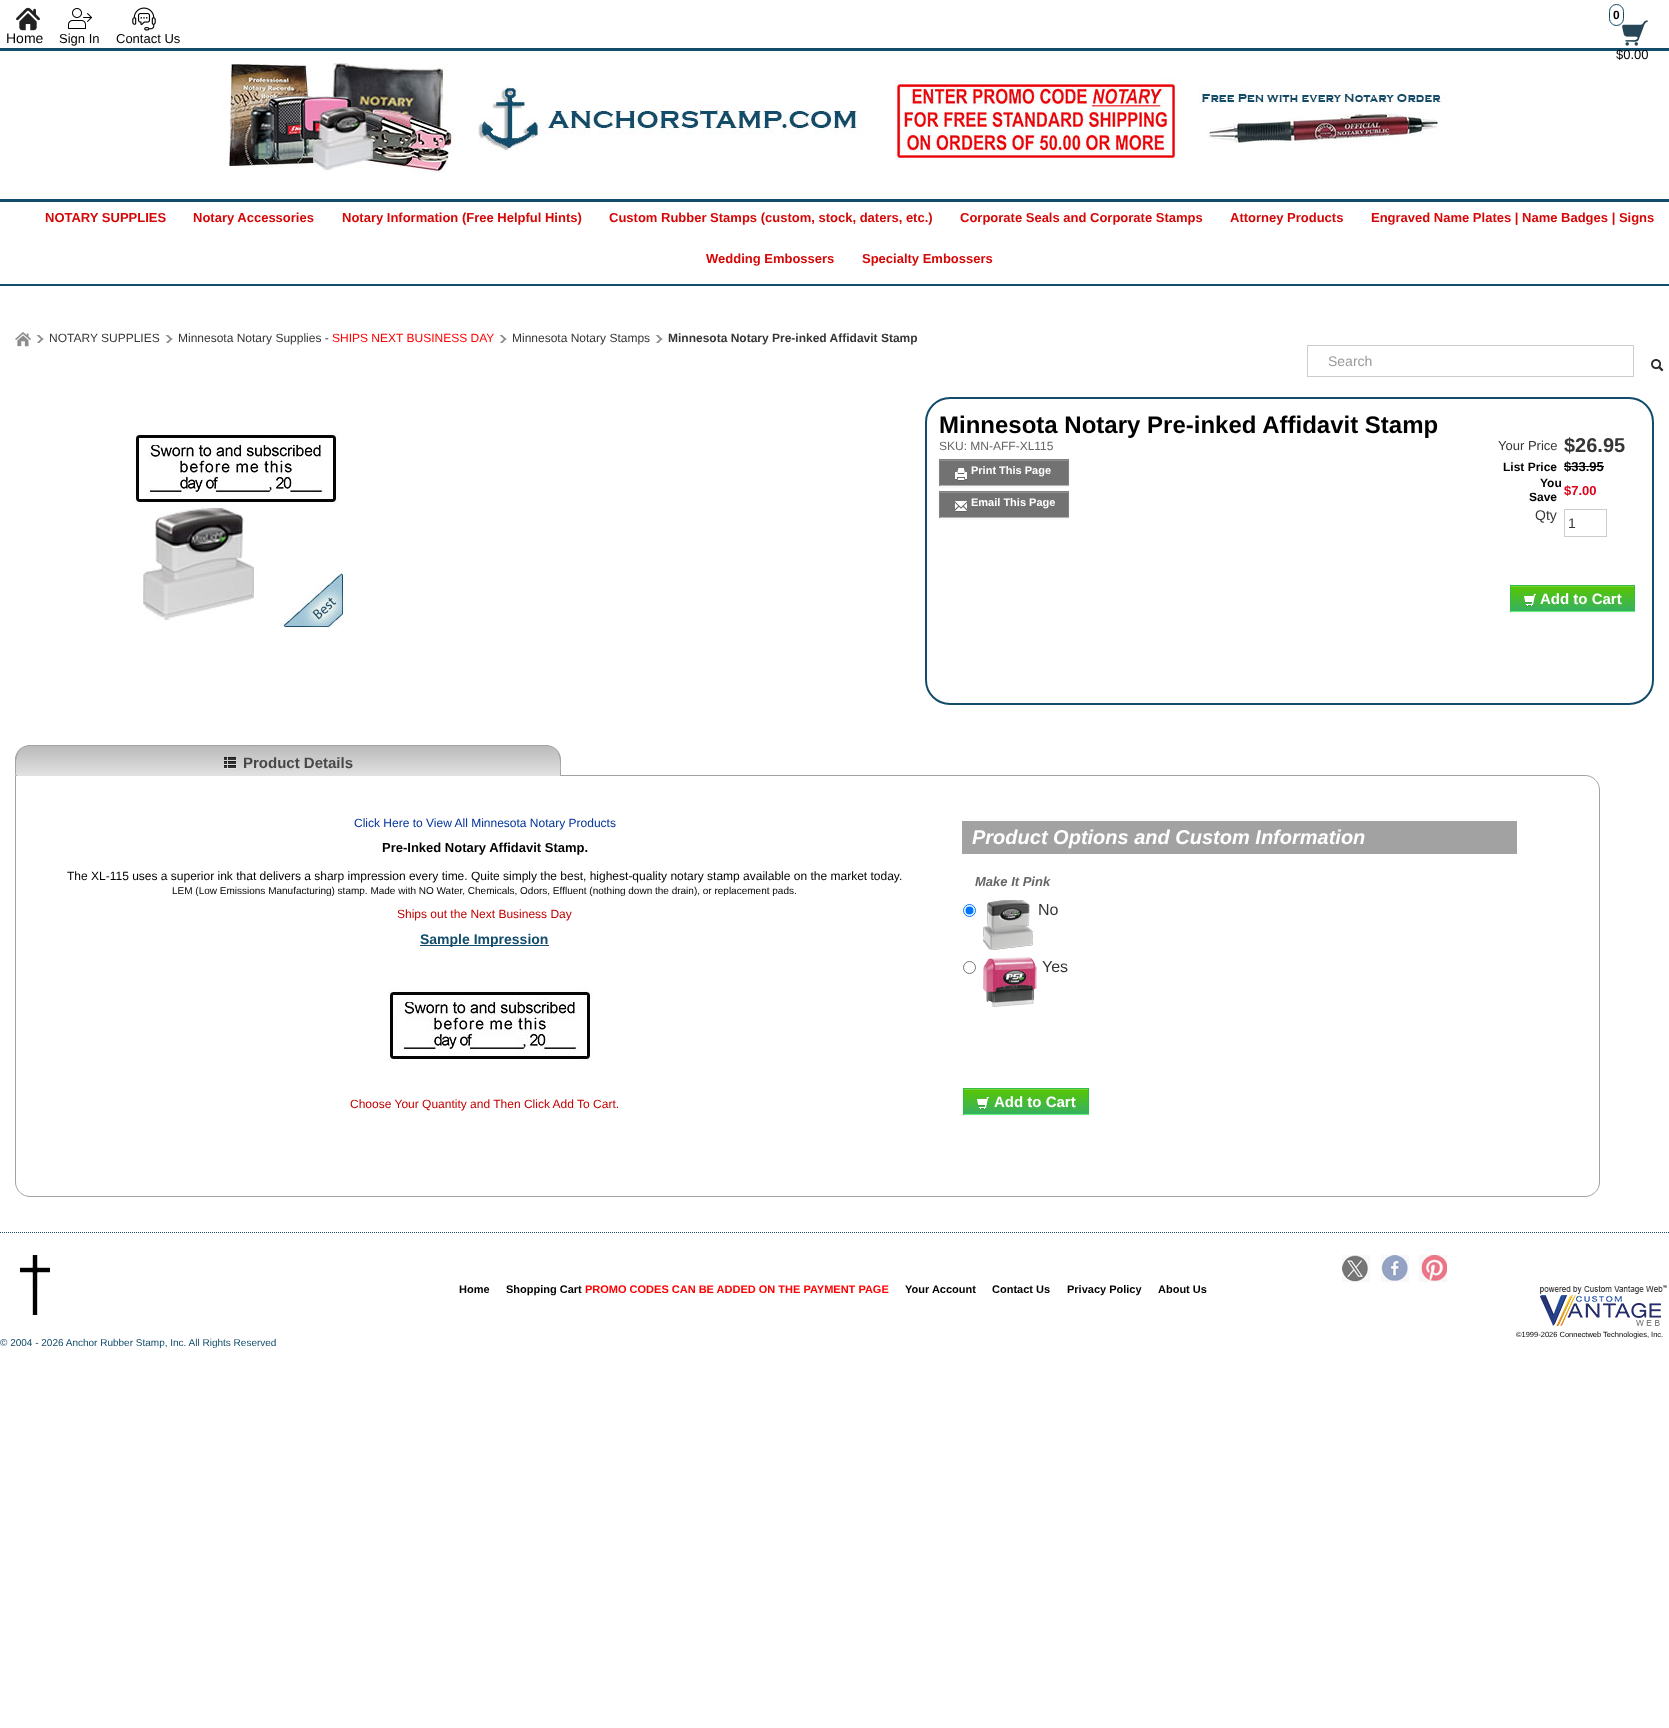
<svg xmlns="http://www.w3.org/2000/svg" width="1669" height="1728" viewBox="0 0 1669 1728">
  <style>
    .t1 { font: 14px Liberation Sans; fill: #000; }
    .t2 { font: 13px Liberation Sans; fill: #000; }
    .t3 { font: bold 12px Liberation Sans; fill: #000; }
    .t4 { font: bold 13px Liberation Sans; fill: #d50707; }
    .t5 { font: 12px Liberation Sans; fill: #363636; }
    .t6 { font: 12px Liberation Sans; fill: #f00; }
    .t7 { font: bold 12px Liberation Sans; fill: #363636; }
    .t8 { font: 14px Liberation Sans; fill: #999; }
    .t9 { font: bold 24px Liberation Sans; fill: #000; }
    .t10 { font: 12px Liberation Sans; fill: #666; }
    .t11 { font: bold 11px Liberation Sans; fill: #fff; }
    .t12 { font: 13px Liberation Sans; fill: #363636; }
    .t13 { font: bold 20px Liberation Sans; fill: #363636; }
    .t14 { font: bold 13px Liberation Sans; fill: #000; }
    .t15 { font: bold 13px Liberation Sans; fill: #df0019; }
    .t16 { font: 14px Liberation Sans; fill: #363636; }
    .t17 { font: bold 15px Liberation Sans; fill: #fff; }
    .t18 { font: bold 15px Liberation Sans; fill: #484848; }
    .t19 { font: 12px Liberation Sans; fill: #039; }
    .t20 { font: 12px Liberation Sans; fill: #000; }
    .t21 { font: 10px Liberation Sans; fill: #000; }
    .t22 { font: 12px Liberation Sans; fill: #c00000; }
    .t23 { font: bold 14px Liberation Sans; fill: #124c6a; }
    .t24 { font: italic bold 20px Liberation Sans; fill: #fff; }
    .t25 { font: italic bold 13px Liberation Sans; fill: #666; }
    .t26 { font: 16px Liberation Sans; fill: #363636; }
    .t27 { font: bold 11px Liberation Sans; fill: #000; }
    .t28 { font: bold 11px Liberation Sans; fill: #f00; }
    .t29 { font: 10px Liberation Sans; fill: #124c6a; }
    .t30 { font: 7.5px Liberation Sans; fill: #000; }
  </style>
  <defs>
    <linearGradient id="g1" gradientUnits="userSpaceOnUse" x1="1573" y1="586" x2="1573" y2="611"><stop offset="0" stop-color="#58c601"/><stop offset="1" stop-color="#36b161"/></linearGradient>
    <clipPath id="clip1"><rect x="15" y="745" width="1639" height="31" rx="3"/></clipPath>
    <clipPath id="clip2"><path d="M30 745H546C554.5 745 561 751.5 561 760V776H15V760C15 751.5 21.5 745 30 745Z"/></clipPath>
    <linearGradient id="g2" gradientUnits="userSpaceOnUse" x1="288" y1="746" x2="288" y2="776"><stop offset="0" stop-color="#bababa"/><stop offset="1" stop-color="#e2e2e2"/></linearGradient>
    <linearGradient id="g3" gradientUnits="userSpaceOnUse" x1="1026" y1="1089" x2="1026" y2="1114"><stop offset="0" stop-color="#58c601"/><stop offset="1" stop-color="#36b161"/></linearGradient>
  </defs>
  <rect width="100%" height="100%" fill="#fff"/>
  <image x="16" y="7" width="24" height="24" href="images/1.png"/>
  <text x="6" y="43" class="t1">Home</text>
  <image x="68" y="8" width="24" height="21" href="images/2.png"/>
  <text x="59" y="43" class="t2">Sign In</text>
  <image x="132" y="7" width="24" height="24" href="images/3.png"/>
  <text x="116" y="43" class="t2">Contact Us</text>
  <image x="1622" y="20" width="26" height="26" href="images/4.png"/>
  <rect x="1609.5" y="4.5" width="14" height="21" rx="7" fill="none" stroke="#124c6a"/>
  <text x="1613" y="19" class="t3">0</text>
  <rect x="0" y="48" width="1669" height="3" fill="#124c6a"/>
  <text x="1616" y="59" class="t2">$0.00</text>
  <rect x="0" y="199" width="1669" height="3" fill="#124c6a"/>
  <image x="223" y="63" width="1224" height="110" href="images/5.png"/>
  <rect x="0" y="284" width="1669" height="2" fill="#124c6a"/>
  <text x="45" y="222" class="t4">NOTARY SUPPLIES</text>
  <text x="193" y="222" class="t4">Notary Accessories</text>
  <text x="342" y="222" class="t4">Notary Information (Free Helpful Hints)</text>
  <text x="609" y="222" class="t4">Custom Rubber Stamps (custom, stock, daters, etc.)</text>
  <text x="960" y="222" class="t4">Corporate Seals and Corporate Stamps</text>
  <text x="1230" y="222" class="t4">Attorney Products</text>
  <text x="1371" y="222" class="t4">Engraved Name Plates | Name Badges | Signs</text>
  <text x="706" y="263" class="t4">Wedding Embossers</text>
  <text x="862" y="263" class="t4">Specialty Embossers</text>
  <image x="15" y="332" width="16" height="15" href="images/6.png"/>
  <image x="36" y="335" width="8" height="8" href="images/7.png"/>
  <text x="49" y="342" class="t5">NOTARY SUPPLIES</text>
  <image x="165" y="335" width="8" height="8" href="images/7.png"/>
  <text x="178" y="342" class="t5">Minnesota Notary Supplies -</text>
  <text x="332" y="342" class="t6">SHIPS NEXT BUSINESS DAY</text>
  <image x="499" y="335" width="8" height="8" href="images/7.png"/>
  <text x="512" y="342" class="t5">Minnesota Notary Stamps</text>
  <image x="655" y="335" width="8" height="8" href="images/7.png"/>
  <text x="668" y="342" class="t7">Minnesota Notary Pre-inked Affidavit Stamp</text>
  <rect x="1307.5" y="345.5" width="326" height="31" fill="none" stroke="#ccc"/>
  <text x="1328" y="366" class="t8">Search</text>
  <image x="1651" y="359" width="13" height="13" href="images/8.png"/>
  <image x="131" y="431" width="212" height="196" href="images/9.png"/>
  <rect x="926" y="398" width="727" height="306" rx="24" fill="none" stroke="#124c6a" stroke-width="2"/>
  <text x="939" y="433" class="t9">Minnesota Notary Pre-inked Affidavit Stamp</text>
  <text x="939" y="450" class="t10">SKU: MN-AFF-XL115</text>
  <rect x="939" y="460" width="130" height="27" fill="#0000000d" filter="blur(1px)"/>
  <rect x="940" y="461" width="128" height="24" fill="#727272"/>
  <rect x="940" y="460" width="128" height="1" fill="#8e8e8e"/>
  <rect x="939" y="459" width="130" height="1" fill="#818181"/>
  <rect x="1068" y="459" width="1" height="27" fill="#818181"/>
  <rect x="939" y="485" width="130" height="1" fill="#b4b4b4"/>
  <rect x="939" y="459" width="1" height="27" fill="#818181"/>
  <image x="955" y="468" width="12" height="13" href="images/10.png"/>
  <text x="971" y="474" class="t11">Print This Page</text>
  <rect x="939" y="492" width="130" height="27" fill="#0000000d" filter="blur(1px)"/>
  <rect x="940" y="493" width="128" height="24" fill="#727272"/>
  <rect x="940" y="492" width="128" height="1" fill="#8e8e8e"/>
  <rect x="939" y="491" width="130" height="1" fill="#818181"/>
  <rect x="1068" y="491" width="1" height="27" fill="#818181"/>
  <rect x="939" y="517" width="130" height="1" fill="#b4b4b4"/>
  <rect x="939" y="491" width="1" height="27" fill="#818181"/>
  <image x="955" y="501" width="12" height="11" href="images/11.png"/>
  <text x="971" y="506" class="t11">Email This Page</text>
  <text x="1498" y="450" class="t12">Your Price</text>
  <text x="1564" y="452" class="t13">$26.95</text>
  <text x="1503" y="471" class="t3">List Price</text>
  <text x="1564" y="471" class="t14">$33.95</text>
  <rect x="1564" y="466" width="40" height="1" fill="#000"/>
  <text x="1540" y="487" class="t3">You</text>
  <text x="1529" y="501" class="t3">Save</text>
  <text x="1564" y="495" class="t15">$7.00</text>
  <text x="1535" y="520" class="t16">Qty</text>
  <rect x="1564.5" y="509.5" width="42" height="27" fill="none" stroke="#ccc"/>
  <text x="1568" y="528" class="t16">1</text>
  <rect x="1510" y="586" width="125" height="27" fill="#0000000d" filter="blur(1px)"/>
  <rect x="1511" y="587" width="123" height="24" fill="url(#g1)"/>
  <rect x="1511" y="586" width="123" height="1" fill="#79d135"/>
  <rect x="1510" y="585" width="125" height="1" fill="#2ec044"/>
  <rect x="1634" y="585" width="1" height="27" fill="#2ec044"/>
  <rect x="1510" y="611" width="125" height="1" fill="#61f377"/>
  <rect x="1510" y="585" width="1" height="27" fill="#2ec044"/>
  <image x="1524" y="594" width="12" height="13" href="images/12.png"/>
  <text x="1540" y="604" class="t17">Add to Cart</text>
  <path d="M15.5 775.5H1585C1593 775.5 1599.5 782 1599.5 790V1182C1599.5 1190 1593 1196.5 1585 1196.5H30C22 1196.5 15.5 1190 15.5 1182Z" fill="none" stroke="#a2a2a2"/>
  <g clip-path="url(#clip1)">
    <g clip-path="url(#clip2)">
      <path d="M15 746H561V776H18C16.5 776 15 774.5 15 773Z" fill="url(#g2)"/>
    </g>
  </g>
  <path d="M30 745C22 745 15 752 15 760V773C15 774 15 775 16 775C16 764 14 746 30 746H546C563 746 560 765 560 776H561V760C561 752 554 745 546 745Z" fill="#a2a2a2"/>
  <image x="224" y="757" width="12" height="12" href="images/13.png"/>
  <text x="243" y="768" class="t18">Product Details</text>
  <text x="354" y="827" class="t19">Click Here to View All Minnesota Notary Products</text>
  <text x="382" y="852" class="t14">Pre-Inked Notary Affidavit Stamp.</text>
  <text x="67" y="880" class="t20">The XL-115 uses a superior ink that delivers a sharp impression every time. Quite simply the best, highest-quality notary stamp available on the market today.</text>
  <text x="172" y="894" class="t21">LEM (Low Emissions Manufacturing) stamp. Made with NO Water, Chemicals, Odors, Effluent (nothing down the drain), or replacement pads.</text>
  <text x="397" y="918" class="t22">Ships out the Next Business Day</text>
  <rect x="420" y="945" width="129" height="1" fill="#124c6a"/>
  <text x="420" y="944" class="t23">Sample Impression</text>
  <image x="389" y="989" width="207" height="72" href="images/14.png"/>
  <text x="350" y="1108" class="t22">Choose Your Quantity and Then Click Add To Cart.</text>
  <rect x="962" y="821" width="555" height="33" fill="#a2a2a2"/>
  <text x="972" y="844" class="t24">Product Options and Custom Information</text>
  <text x="975" y="886" class="t25">Make It Pink</text>
  <circle cx="969.5" cy="910.5" r="6" fill="none" stroke="#0075ff"/>
  <circle cx="969.5" cy="910.5" r="4" fill="#0075ff"/>
  <image x="983" y="900" width="50" height="50" href="images/15.png"/>
  <text x="1038" y="915" class="t26">No</text>
  <circle cx="969.5" cy="967.5" r="6" fill="none" stroke="#767676"/>
  <image x="983" y="957" width="54" height="50" href="images/16.png"/>
  <text x="1042" y="972" class="t26">Yes</text>
  <rect x="963" y="1089" width="126" height="27" fill="#0000000d" filter="blur(1px)"/>
  <rect x="964" y="1090" width="124" height="24" fill="url(#g3)"/>
  <rect x="964" y="1089" width="124" height="1" fill="#79d135"/>
  <rect x="963" y="1088" width="126" height="1" fill="#2ec044"/>
  <rect x="1088" y="1088" width="1" height="27" fill="#2ec044"/>
  <rect x="963" y="1114" width="126" height="1" fill="#61f377"/>
  <rect x="963" y="1088" width="1" height="27" fill="#2ec044"/>
  <image x="977" y="1097" width="12" height="13" href="images/12.png"/>
  <text x="994" y="1107" class="t17">Add to Cart</text>
  <path d="M-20 1232.5H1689" fill="none" stroke="#124c6a" stroke-dasharray="1 1"/>
  <image x="1342" y="1255" width="28" height="27" href="images/17.png"/>
  <image x="1381" y="1255" width="28" height="27" href="images/18.png"/>
  <image x="1419" y="1255" width="28" height="27" href="images/19.png"/>
  <text x="459" y="1293" class="t27">Home</text>
  <text x="506" y="1293" class="t27">Shopping Cart</text>
  <text x="585" y="1293" class="t28">PROMO CODES CAN BE ADDED ON THE PAYMENT PAGE</text>
  <text x="905" y="1293" class="t27">Your Account</text>
  <text x="992" y="1293" class="t27">Contact Us</text>
  <text x="1067" y="1293" class="t27">Privacy Policy</text>
  <text x="1158" y="1293" class="t27">About Us</text>
  <image x="20" y="1255" width="30" height="60" href="images/20.png"/>
  <text x="0" y="1346" class="t29">© 2004 - 2026 Anchor Rubber Stamp, Inc. All Rights Reserved</text>
  <image x="1540" y="1285" width="127" height="41" href="images/21.png"/>
  <text x="1516" y="1337" class="t30">©1999-2026 Connectweb Technologies, Inc.</text>
</svg>
